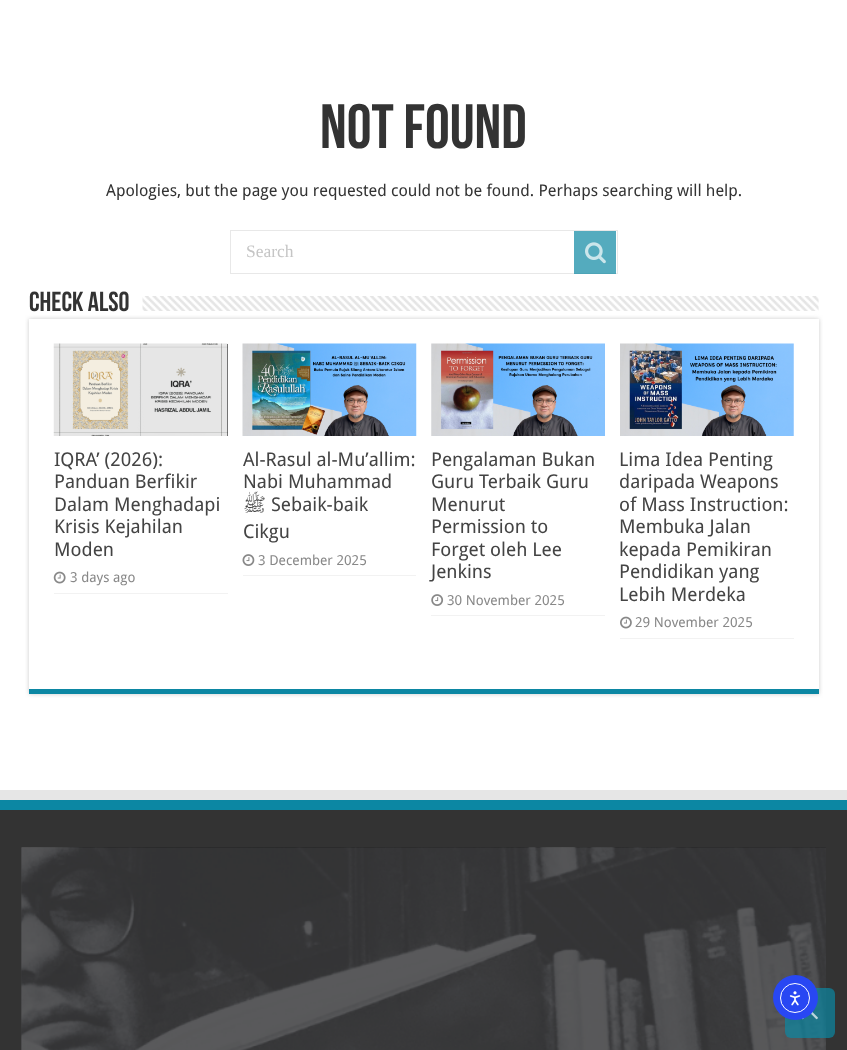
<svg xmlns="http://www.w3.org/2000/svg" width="847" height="1050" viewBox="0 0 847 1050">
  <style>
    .t1 { font: bold 62.5px Bebas Neue; fill: #333; }
    .t2 { font: 16.25px Droid Sans; fill: #333; }
    .t3 { font: 17.5px Liberation Serif; fill: #c5c5c5; }
    .t4 { font: bold 27.5px Bebas Neue; fill: #333; }
    .t5 { font: 19px Droid Sans; fill: #444; }
    .t6 { font: 13.75px Droid Sans; fill: #888; }
    .t7 { font: 19px Lateef; direction: rtl; fill: #444; }
  </style>
  <rect width="100%" height="100%" fill="#fff"/>
  <text x="320" y="148" class="t1">Not Found</text>
  <text x="106" y="196" class="t2">Apologies, but the page you requested could not be found. Perhaps searching will help.</text>
  <rect x="230.5" y="230.5" width="387" height="43" fill="none" stroke="#e8e8e8"/>
  <text x="246" y="257" class="t3">Search</text>
  <rect x="574" y="231" width="42" height="43" fill="#0c87a3b3"/>
  <image x="585" y="242" width="21" height="22" href="images/1.png"/>
  <text x="29" y="311" class="t4">Check Also</text>
  <image x="142" y="296" width="677" height="15" href="images/2.png"/>
  <rect x="29" y="319" width="790" height="375" fill="#cacaca" filter="blur(2px)"/>
  <rect x="29" y="319" width="790" height="370" fill="#fff"/>
  <rect x="29" y="689" width="790" height="5" fill="#0c87a3"/>
  <rect x="227" y="344" width="1" height="92" fill="#000"/>
  <image x="53" y="343" width="175" height="93" href="images/3.png"/>
  <text x="54" y="466" class="t5">IQRA’ (2026):</text>
  <text x="54" y="488" class="t5">Panduan Berfikir</text>
  <text x="54" y="511" class="t5">Dalam Menghadapi</text>
  <text x="54" y="533" class="t5">Krisis Kejahilan</text>
  <text x="54" y="556" class="t5">Moden</text>
  <rect x="54" y="593" width="174" height="1" fill="#f2f2f2"/>
  <image x="53" y="571" width="13" height="13" href="images/4.png"/>
  <text x="70" y="582" class="t6">3 days ago</text>
  <image x="242" y="343" width="175" height="93" href="images/5.png"/>
  <text x="243" y="466" class="t5">Al-Rasul al-Mu’allim:</text>
  <text x="243" y="488" class="t5">Nabi Muhammad</text>
  <text x="266" y="511" class="t7">ﷺ</text>
  <text x="271" y="511" class="t5">Sebaik-baik</text>
  <text x="243" y="538" class="t5">Cikgu</text>
  <rect x="243" y="575" width="173" height="1" fill="#f2f2f2"/>
  <image x="242" y="554" width="13" height="12" href="images/6.png"/>
  <text x="258" y="565" class="t6">3 December 2025</text>
  <image x="431" y="343" width="174" height="93" href="images/7.png"/>
  <text x="431" y="466" class="t5">Pengalaman Bukan</text>
  <text x="431" y="488" class="t5">Guru Terbaik Guru</text>
  <text x="431" y="511" class="t5">Menurut</text>
  <text x="431" y="533" class="t5">Permission to</text>
  <text x="431" y="556" class="t5">Forget oleh Lee</text>
  <text x="431" y="578" class="t5">Jenkins</text>
  <rect x="431" y="615" width="174" height="1" fill="#f2f2f2"/>
  <image x="431" y="594" width="13" height="12" href="images/8.png"/>
  <text x="447" y="605" class="t6">30 November 2025</text>
  <image x="620" y="343" width="174" height="93" href="images/9.png"/>
  <text x="619" y="466" class="t5">Lima Idea Penting</text>
  <text x="619" y="488" class="t5">daripada Weapons</text>
  <text x="619" y="511" class="t5">of Mass Instruction:</text>
  <text x="619" y="533" class="t5">Membuka Jalan</text>
  <text x="619" y="556" class="t5">kepada Pemikiran</text>
  <text x="619" y="578" class="t5">Pendidikan yang</text>
  <text x="619" y="601" class="t5">Lebih Merdeka</text>
  <rect x="620" y="638" width="174" height="1" fill="#f2f2f2"/>
  <image x="620" y="616" width="12" height="13" href="images/10.png"/>
  <text x="635" y="627" class="t6">29 November 2025</text>
  <path d="M0 790V800H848V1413V790Z" fill="#e6e6e6"/>
  <rect x="0" y="810" width="847" height="240" fill="#333"/>
  <rect x="0" y="800" width="847" height="10" fill="#0c87a3"/>
  <image x="21" y="847" width="805" height="203" href="images/11.png"/>
  <rect x="21" y="848" width="805" height="202" fill="#41424380"/>
  <rect x="785" y="988" width="50" height="50" rx="6" fill="#0c87a3b3"/>
  <image x="802" y="1011" width="16" height="9" href="images/13.png"/>
  <circle cx="795.5" cy="997.5" r="22.5" fill="#2847f3"/>
  <circle cx="795" cy="998" r="14.5" fill="none" stroke="#fff"/>
  <image x="789" y="991" width="12" height="15" href="images/12.png"/>
</svg>
